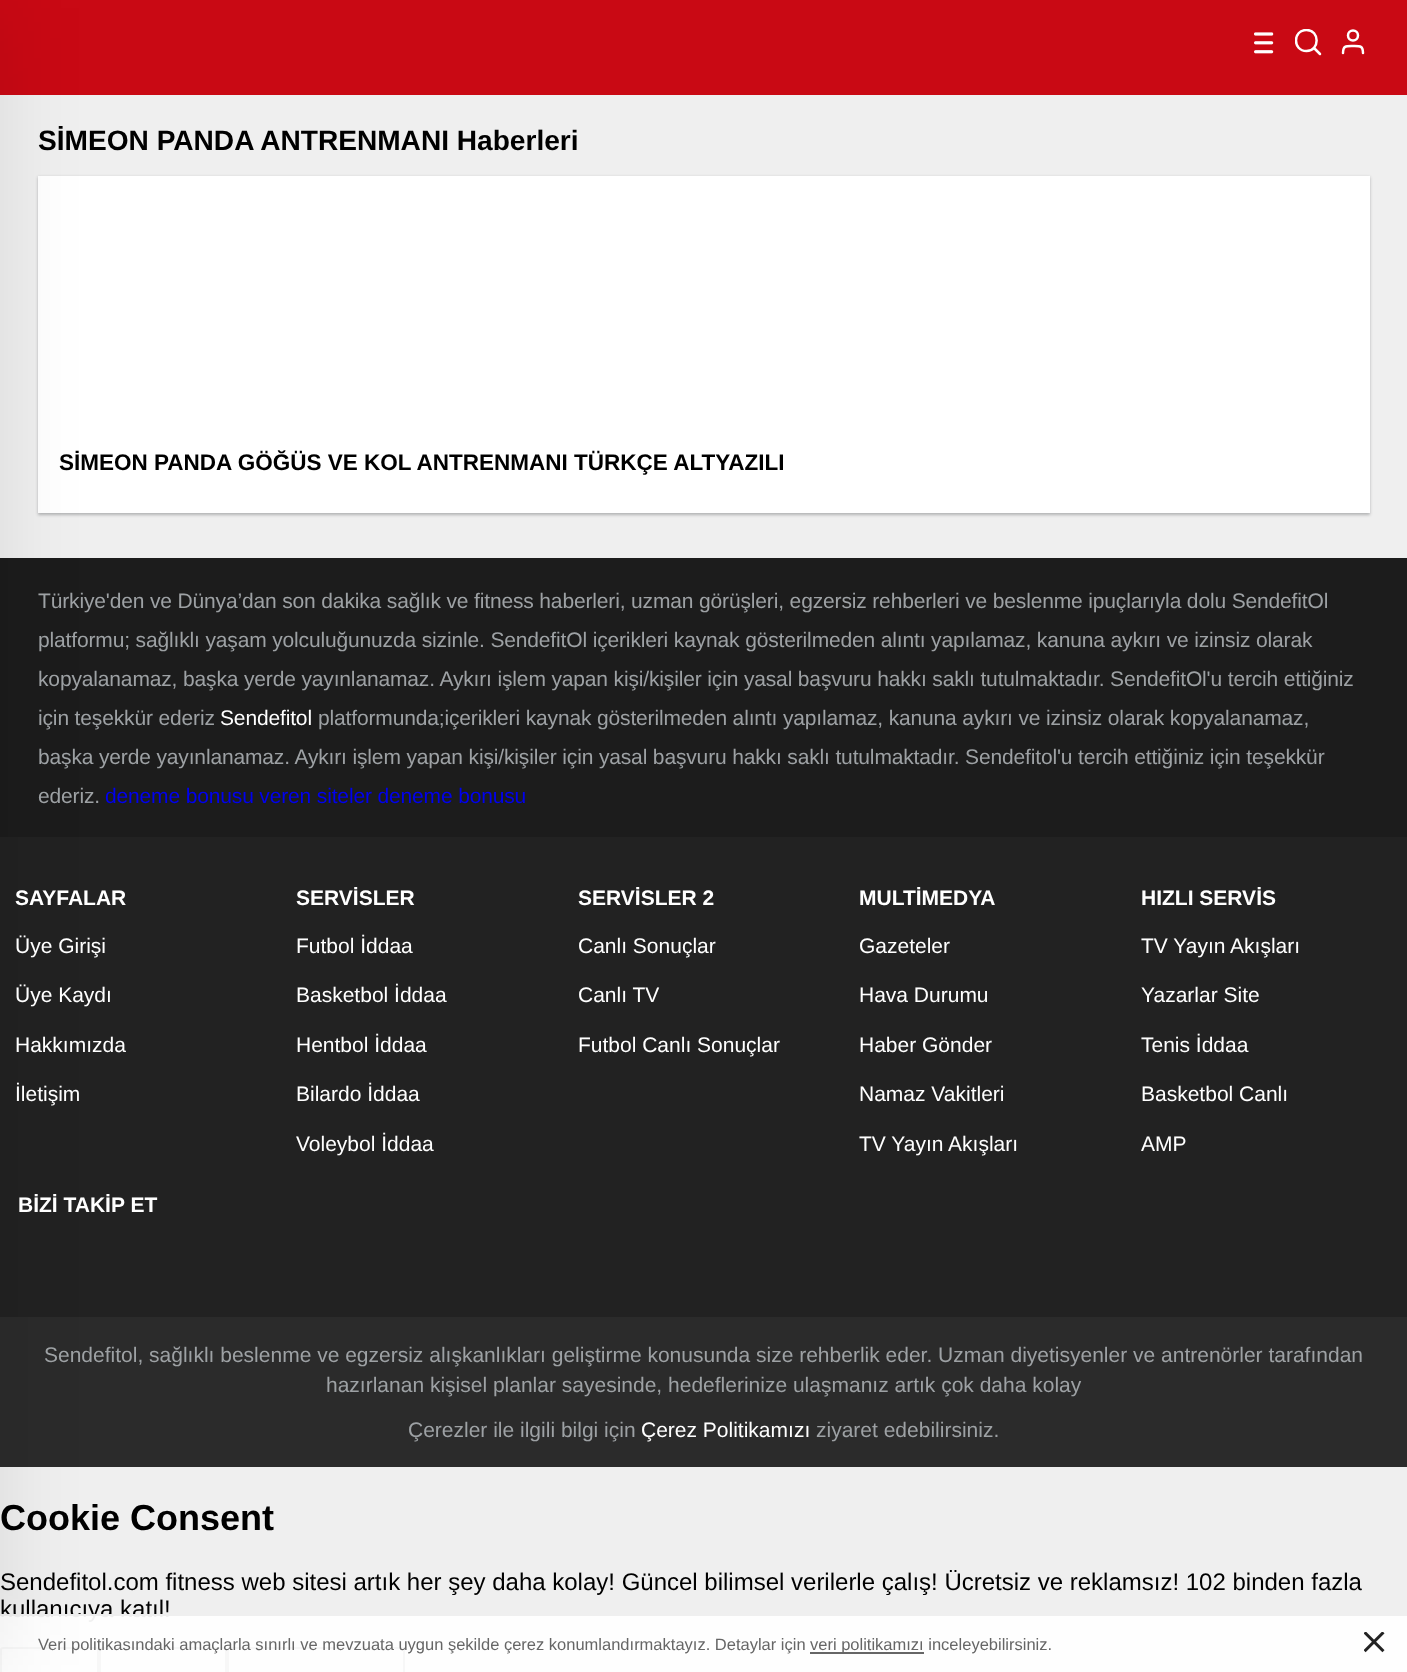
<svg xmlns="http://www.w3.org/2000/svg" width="1407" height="1672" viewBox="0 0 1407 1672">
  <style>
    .t1 { font: 24px Liberation Sans; fill: #000; }
    .t2 { font: bold 28.1px Liberation Sans; fill: #000; }
    .t3 { font: bold 22.5px Liberation Sans; fill: #000; }
    .t4 { font: 21px Liberation Sans; letter-spacing: -0.15px; fill: #9da1a4; }
    .t5 { font: 21px Liberation Sans; letter-spacing: -0.15px; fill: #fff; }
    .t6 { font: 21px Liberation Sans; letter-spacing: -0.15px; fill: #00e; }
    .t7 { font: bold 21px Liberation Sans; fill: #fff; }
    .t8 { font: 21px Liberation Sans; fill: #fff; }
    .t9 { font: 21px Liberation Sans; fill: #9da1a4; }
    .t10 { font: bold 36px Liberation Sans; fill: #000; }
    .t11 { font: 16.5px Liberation Sans; fill: #666; }
  </style>
  <defs>
    <clipPath id="clip1"><rect x="1295" y="29" width="27" height="27"/></clipPath>
  </defs>
  <rect width="100%" height="100%" fill="#efefef"/>
  <rect x="0" y="0" width="1407" height="95" fill="#c90914"/>
  <g clip-path="url(#clip1)">
    <path d="M1306.5 51C1320 51 1320 30 1306.5 30C1292.5 30 1292.5 51 1306.5 51Z" fill="none" stroke="#fff" stroke-width="2.5" stroke-linecap="round" stroke-linejoin="round"/>
  </g>
  <path d="M1314 48L1320 54M1363 53C1363 45.5 1360 46 1353 46C1346 46 1343 45.5 1343 53" fill="none" stroke="#fff" stroke-width="2.5" stroke-linecap="round" stroke-linejoin="round"/>
  <image x="1254" y="32" width="20" height="22" href="images/1.png"/>
  <circle cx="1353" cy="35.5" r="5" fill="none" stroke="#fff" stroke-width="2.5"/>
  <rect x="38" y="177" width="1332" height="338" fill="#11151945" filter="blur(1.5px)"/>
  <rect x="38" y="176" width="1332" height="337" fill="#fff"/>
  <rect x="0" y="837" width="1407" height="480" fill="#222"/>
  <rect x="0" y="558" width="1407" height="279" fill="#1c1c1c"/>
  <rect x="0" y="1317" width="1407" height="150" fill="#2b2b2b"/>
  <rect x="1" y="1648" width="97" height="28" rx="2" fill="none" stroke="#767676" stroke-width="2"/>
  <rect x="100" y="1648" width="126" height="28" rx="2" fill="none" stroke="#767676" stroke-width="2"/>
  <text x="0" y="1617" class="t1">kullanıcıya katıl!</text>
  <rect x="228" y="1648" width="176" height="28" rx="2" fill="none" stroke="#767676" stroke-width="2"/>
  <rect x="0" y="1616" width="1407" height="56" fill="#fffffff0"/>
  <rect x="0" y="1614" width="169" height="2" fill="#eee"/>
  <rect x="-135" y="8" width="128" height="1657" fill="#0000001a" filter="blur(45px)"/>
  <text x="38" y="150" class="t2">SİMEON PANDA ANTRENMANI Haberleri</text>
  <text x="59" y="470" class="t3">SİMEON PANDA GÖĞÜS VE KOL ANTRENMANI TÜRKÇE ALTYAZILI</text>
  <text x="38" y="608" class="t4">Türkiye'den ve Dünya’dan son dakika sağlık ve fitness haberleri, uzman görüşleri, egzersiz rehberleri ve beslenme ipuçlarıyla dolu SendefitOl</text>
  <text x="38" y="647" class="t4">platformu; sağlıklı yaşam yolculuğunuzda sizinle. SendefitOl içerikleri kaynak gösterilmeden alıntı yapılamaz, kanuna aykırı ve izinsiz olarak</text>
  <text x="38" y="686" class="t4">kopyalanamaz, başka yerde yayınlanamaz. Aykırı işlem yapan kişi/kişiler için yasal başvuru hakkı saklı tutulmaktadır. SendefitOl'u tercih ettiğiniz</text>
  <text x="38" y="725" class="t4">için teşekkür ederiz</text>
  <text x="220" y="725" class="t5">Sendefitol</text>
  <text x="318" y="725" class="t4">platformunda;içerikleri kaynak gösterilmeden alıntı yapılamaz, kanuna aykırı ve izinsiz olarak kopyalanamaz,</text>
  <text x="38" y="764" class="t4">başka yerde yayınlanamaz. Aykırı işlem yapan kişi/kişiler için yasal başvuru hakkı saklı tutulmaktadır. Sendefitol'u tercih ettiğiniz için teşekkür</text>
  <text x="38" y="803" class="t4">ederiz.</text>
  <text x="105" y="803" class="t6">deneme bonusu veren siteler deneme bonusu</text>
  <text x="15" y="905" class="t7">SAYFALAR</text>
  <text x="15" y="953" class="t8">Üye Girişi</text>
  <text x="15" y="1002" class="t8">Üye Kaydı</text>
  <text x="15" y="1052" class="t8">Hakkımızda</text>
  <text x="15" y="1101" class="t8">İletişim</text>
  <text x="296" y="905" class="t7">SERVİSLER</text>
  <text x="296" y="953" class="t8">Futbol İddaa</text>
  <text x="296" y="1002" class="t8">Basketbol İddaa</text>
  <text x="296" y="1052" class="t8">Hentbol İddaa</text>
  <text x="296" y="1101" class="t8">Bilardo İddaa</text>
  <text x="296" y="1151" class="t8">Voleybol İddaa</text>
  <text x="578" y="905" class="t7">SERVİSLER 2</text>
  <text x="578" y="953" class="t8">Canlı Sonuçlar</text>
  <text x="578" y="1002" class="t8">Canlı TV</text>
  <text x="578" y="1052" class="t8">Futbol Canlı Sonuçlar</text>
  <text x="859" y="905" class="t7">MULTİMEDYA</text>
  <text x="859" y="953" class="t8">Gazeteler</text>
  <text x="859" y="1002" class="t8">Hava Durumu</text>
  <text x="859" y="1052" class="t8">Haber Gönder</text>
  <text x="859" y="1101" class="t8">Namaz Vakitleri</text>
  <text x="859" y="1151" class="t8">TV Yayın Akışları</text>
  <text x="1141" y="905" class="t7">HIZLI SERVİS</text>
  <text x="1141" y="953" class="t8">TV Yayın Akışları</text>
  <text x="1141" y="1002" class="t8">Yazarlar Site</text>
  <text x="1141" y="1052" class="t8">Tenis İddaa</text>
  <text x="1141" y="1101" class="t8">Basketbol Canlı</text>
  <text x="1141" y="1151" class="t8">AMP</text>
  <text x="18" y="1212" class="t7">BİZİ TAKİP ET</text>
  <text x="44" y="1362" class="t9">Sendefitol, sağlıklı beslenme ve egzersiz alışkanlıkları geliştirme konusunda size rehberlik eder. Uzman diyetisyenler ve antrenörler tarafından</text>
  <text x="326" y="1392" class="t9">hazırlanan kişisel planlar sayesinde, hedeflerinize ulaşmanız artık çok daha kolay</text>
  <text x="408" y="1437" class="t9">Çerezler ile ilgili bilgi için</text>
  <text x="641" y="1437" class="t8">Çerez Politikamızı</text>
  <text x="816" y="1437" class="t9">ziyaret edebilirsiniz.</text>
  <text x="0" y="1530" class="t10">Cookie Consent</text>
  <text x="0" y="1590" class="t1">Sendefitol.com fitness web sitesi artık her şey daha kolay! Güncel bilimsel verilerle çalış! Ücretsiz ve reklamsız! 102 binden fazla</text>
  <text x="38" y="1650" class="t11">Veri politikasındaki amaçlarla sınırlı ve mevzuata uygun şekilde çerez konumlandırmaktayız. Detaylar için</text>
  <rect x="810" y="1652" width="114" height="2" fill="#666"/>
  <text x="810" y="1650" class="t11">veri politikamızı inceleyebilirsiniz.</text>
  <image x="1364" y="1632" width="21" height="21" href="images/2.png"/>
</svg>
